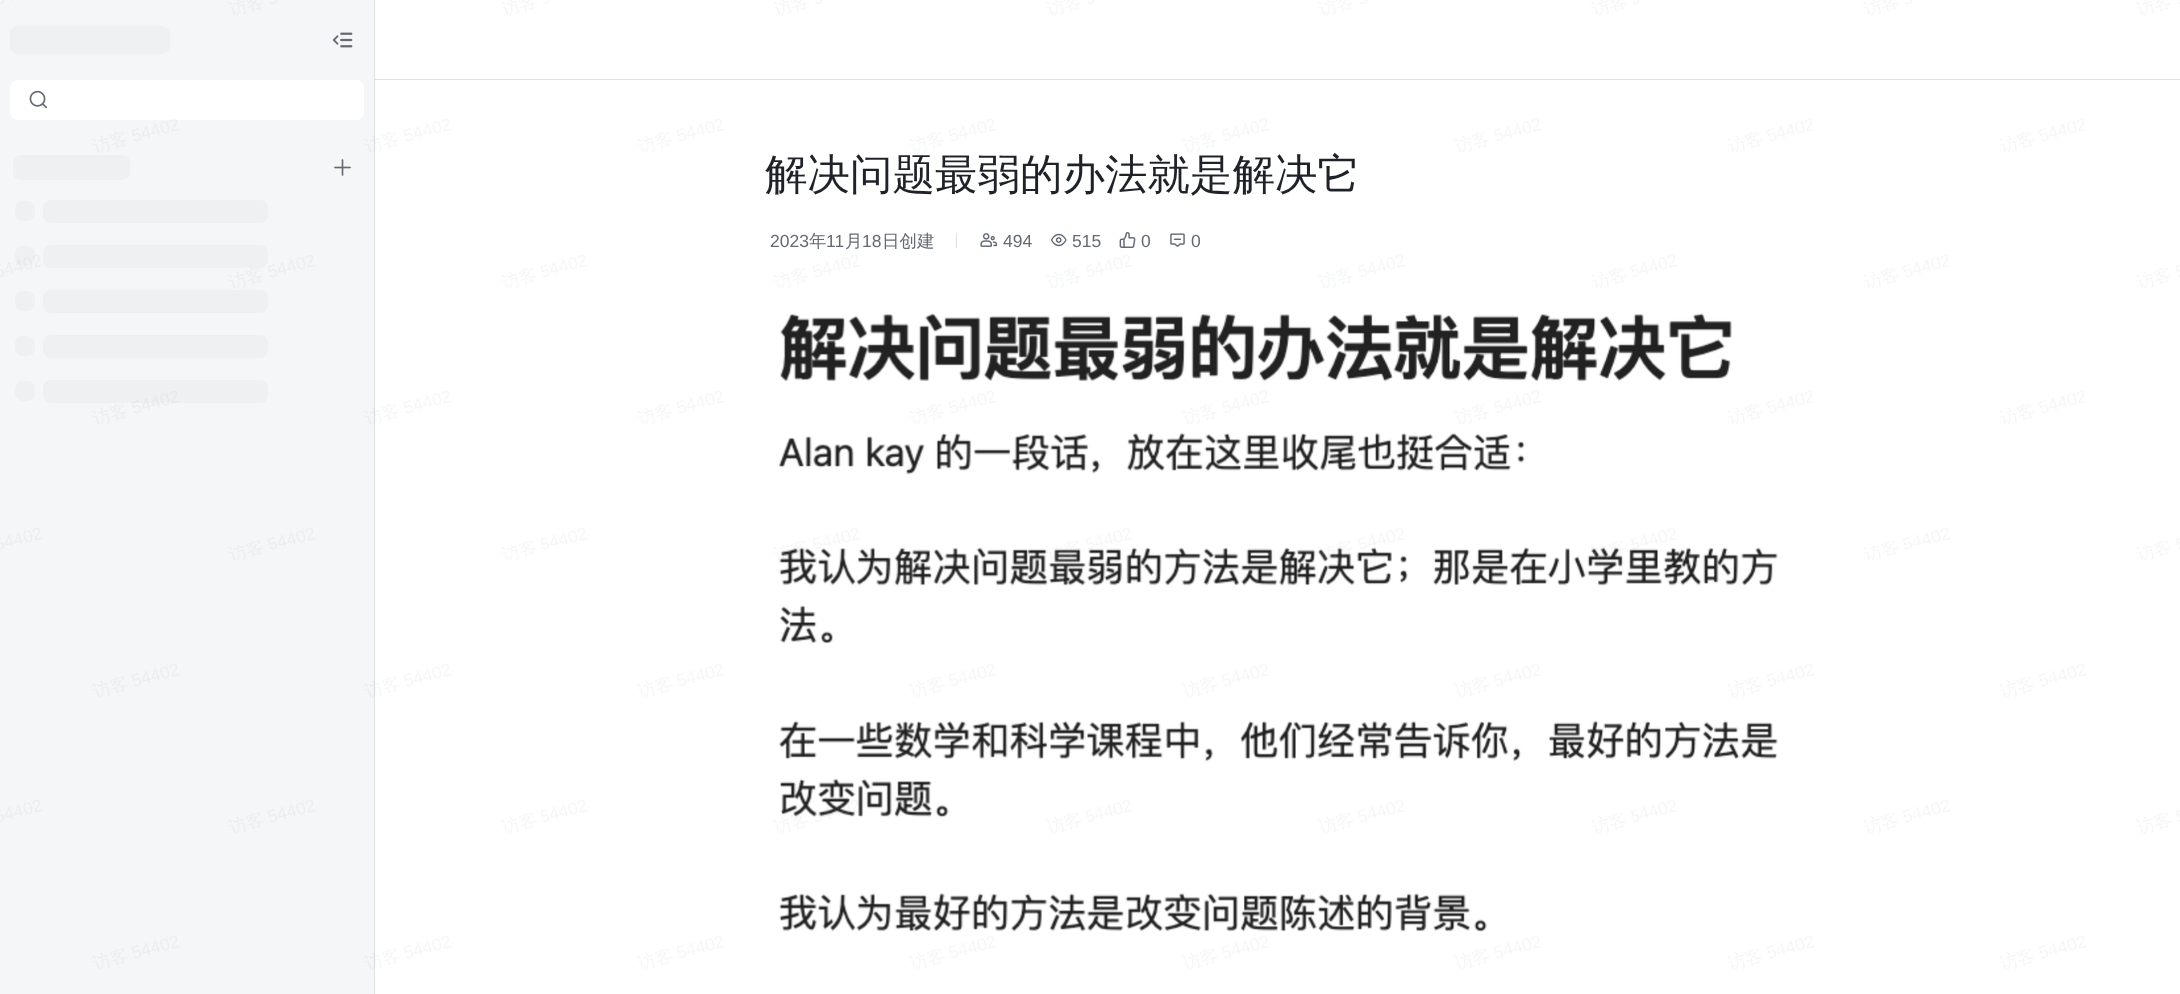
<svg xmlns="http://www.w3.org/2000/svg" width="2180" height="994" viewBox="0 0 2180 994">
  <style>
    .t1 { font: 500 42.5px WenQuanYi Zen Hei; fill: #1f2329; }
    .t2 { font: 17.5px Liberation Sans; fill: #646a73; }
    .t3 { font: 500 17.5px WenQuanYi Zen Hei; fill: #646a73; }
  </style>
  <rect width="100%" height="100%" fill="#fff"/>
  <rect x="0" y="0" width="374" height="994" fill="#f5f6f7"/>
  <rect x="374" y="0" width="1" height="994" fill="#dee0e3"/>
  <rect x="10" y="26" width="160" height="28" rx="8" fill="#eff0f1"/>
  <image x="332" y="32" width="21" height="16" href="images/2.png"/>
  <rect x="10" y="80" width="354" height="40" rx="8" fill="#fff"/>
  <image x="29" y="90" width="18" height="19" href="images/3.png"/>
  <rect x="13" y="155" width="117" height="25" rx="8" fill="#eff0f1"/>
  <image x="334" y="159" width="17" height="17" href="images/4.png"/>
  <rect x="15" y="201" width="20" height="20" rx="8" fill="#eff0f1"/>
  <rect x="43" y="200" width="225" height="23" rx="8" fill="#eff0f1"/>
  <rect x="15" y="246" width="20" height="20" rx="8" fill="#eff0f1"/>
  <rect x="43" y="245" width="225" height="23" rx="8" fill="#eff0f1"/>
  <rect x="15" y="291" width="20" height="20" rx="8" fill="#eff0f1"/>
  <rect x="43" y="290" width="225" height="23" rx="8" fill="#eff0f1"/>
  <rect x="15" y="336" width="20" height="20" rx="8" fill="#eff0f1"/>
  <rect x="43" y="335" width="225" height="23" rx="8" fill="#eff0f1"/>
  <rect x="15" y="381" width="20" height="20" rx="8" fill="#eff0f1"/>
  <rect x="43" y="380" width="225" height="23" rx="8" fill="#eff0f1"/>
  <rect x="375" y="79" width="1805" height="1" fill="#dee0e3"/>
  <text x="765" y="189" class="t1">解决问题最弱的办法就是解决它</text>
  <text x="770" y="247" class="t2">2023</text>
  <text x="809" y="247" class="t3">年</text>
  <text x="826" y="247" class="t2">11</text>
  <text x="845" y="247" class="t3">月</text>
  <text x="862" y="247" class="t2">18</text>
  <text x="882" y="247" class="t3">日创建</text>
  <rect x="956" y="233" width="1" height="15" fill="#dddedf"/>
  <image x="980" y="233" width="18" height="14" href="images/5.png"/>
  <text x="1003" y="247" class="t2">494</text>
  <image x="1051" y="233" width="16" height="14" href="images/6.png"/>
  <text x="1072" y="247" class="t2">515</text>
  <image x="1119" y="232" width="17" height="16" href="images/7.png"/>
  <text x="1141" y="247" class="t2">0</text>
  <image x="1170" y="233" width="15" height="14" href="images/8.png"/>
  <text x="1191" y="247" class="t2">0</text>
  <image x="778" y="313" width="1000" height="619" href="images/9.png"/>
  <image x="0" y="0" width="2180" height="970" href="images/1.png"/>
</svg>
